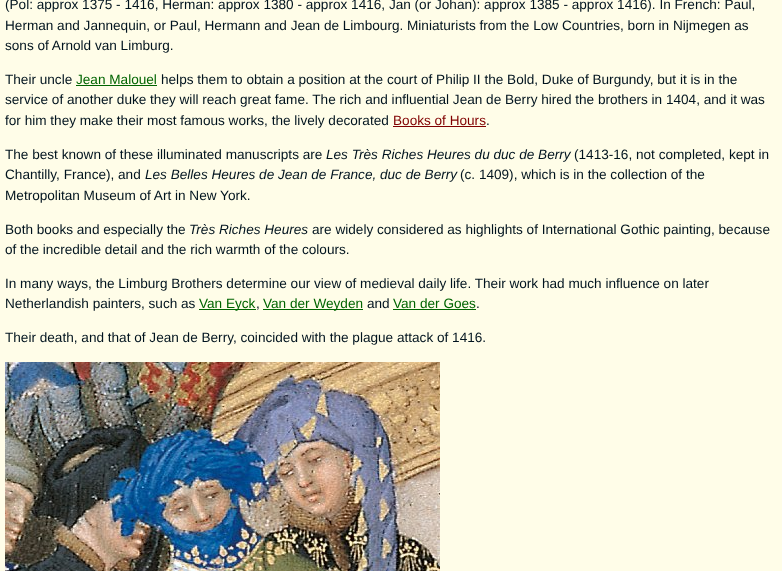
<svg xmlns="http://www.w3.org/2000/svg" width="782" height="571" viewBox="0 0 782 571">
  <style>
    .t1 { font: 13.6px Liberation Sans; fill: #00131e; }
    .t2 { font: 13.6px Liberation Sans; fill: #006400; }
    .t3 { font: 13.6px Liberation Sans; fill: #800000; }
    .t4 { font: italic 13.6px Liberation Sans; fill: #00131e; }
  </style>
  <rect width="100%" height="100%" fill="#fffde8"/>
  <text x="5" y="9" class="t1">(Pol: approx 1375 - 1416, Herman: approx 1380 - approx 1416, Jan (or Johan): approx 1385 - approx 1416). In French: Paul,</text>
  <text x="5" y="30" class="t1">Herman and Jannequin, or Paul, Hermann and Jean de Limbourg. Miniaturists from the Low Countries, born in Nijmegen as</text>
  <text x="5" y="50" class="t1">sons of Arnold van Limburg.</text>
  <text x="5" y="84" class="t1">Their uncle</text>
  <text x="76" y="84" class="t2">Jean Malouel</text>
  <rect x="76" y="85" width="81" height="1" fill="#006400"/>
  <text x="161" y="84" class="t1">helps them to obtain a position at the court of Philip II the Bold, Duke of Burgundy, but it is in the</text>
  <text x="5" y="104" class="t1">service of another duke they will reach great fame. The rich and influential Jean de Berry hired the brothers in 1404, and it was</text>
  <text x="5" y="125" class="t1">for him they make their most famous works, the lively decorated</text>
  <text x="393" y="125" class="t3">Books of Hours</text>
  <rect x="393" y="126" width="93" height="1" fill="#800000"/>
  <text x="486" y="125" class="t1">.</text>
  <text x="5" y="159" class="t1">The best known of these illuminated manuscripts are</text>
  <text x="326" y="159" class="t4">Les Très Riches Heures du duc de Berry</text>
  <text x="574" y="159" class="t1">(1413-16, not completed, kept in</text>
  <text x="5" y="179" class="t1">Chantilly, France), and</text>
  <text x="145" y="179" class="t4">Les Belles Heures de Jean de France, duc de Berry</text>
  <text x="460" y="179" class="t1">(c. 1409), which is in the collection of the</text>
  <text x="5" y="200" class="t1">Metropolitan Museum of Art in New York.</text>
  <text x="5" y="234" class="t1">Both books and especially the</text>
  <text x="189" y="234" class="t4">Très Riches Heures</text>
  <text x="312" y="234" class="t1">are widely considered as highlights of International Gothic painting, because</text>
  <text x="5" y="254" class="t1">of the incredible detail and the rich warmth of the colours.</text>
  <text x="5" y="288" class="t1">In many ways, the Limburg Brothers determine our view of medieval daily life. Their work had much influence on later</text>
  <text x="5" y="308" class="t1">Netherlandish painters, such as</text>
  <rect x="199" y="309" width="57" height="1" fill="#006400"/>
  <text x="199" y="308" class="t2">Van Eyck</text>
  <text x="256" y="308" class="t1">,</text>
  <rect x="263" y="309" width="100" height="1" fill="#006400"/>
  <text x="263" y="308" class="t2">Van der Weyden</text>
  <text x="367" y="308" class="t1">and</text>
  <text x="393" y="308" class="t2">Van der Goes</text>
  <rect x="393" y="309" width="83" height="1" fill="#006400"/>
  <text x="476" y="308" class="t1">.</text>
  <text x="5" y="342" class="t1">Their death, and that of Jean de Berry, coincided with the plague attack of 1416.</text>
  <image x="5" y="362" width="435" height="209" href="images/1.png"/>
</svg>
